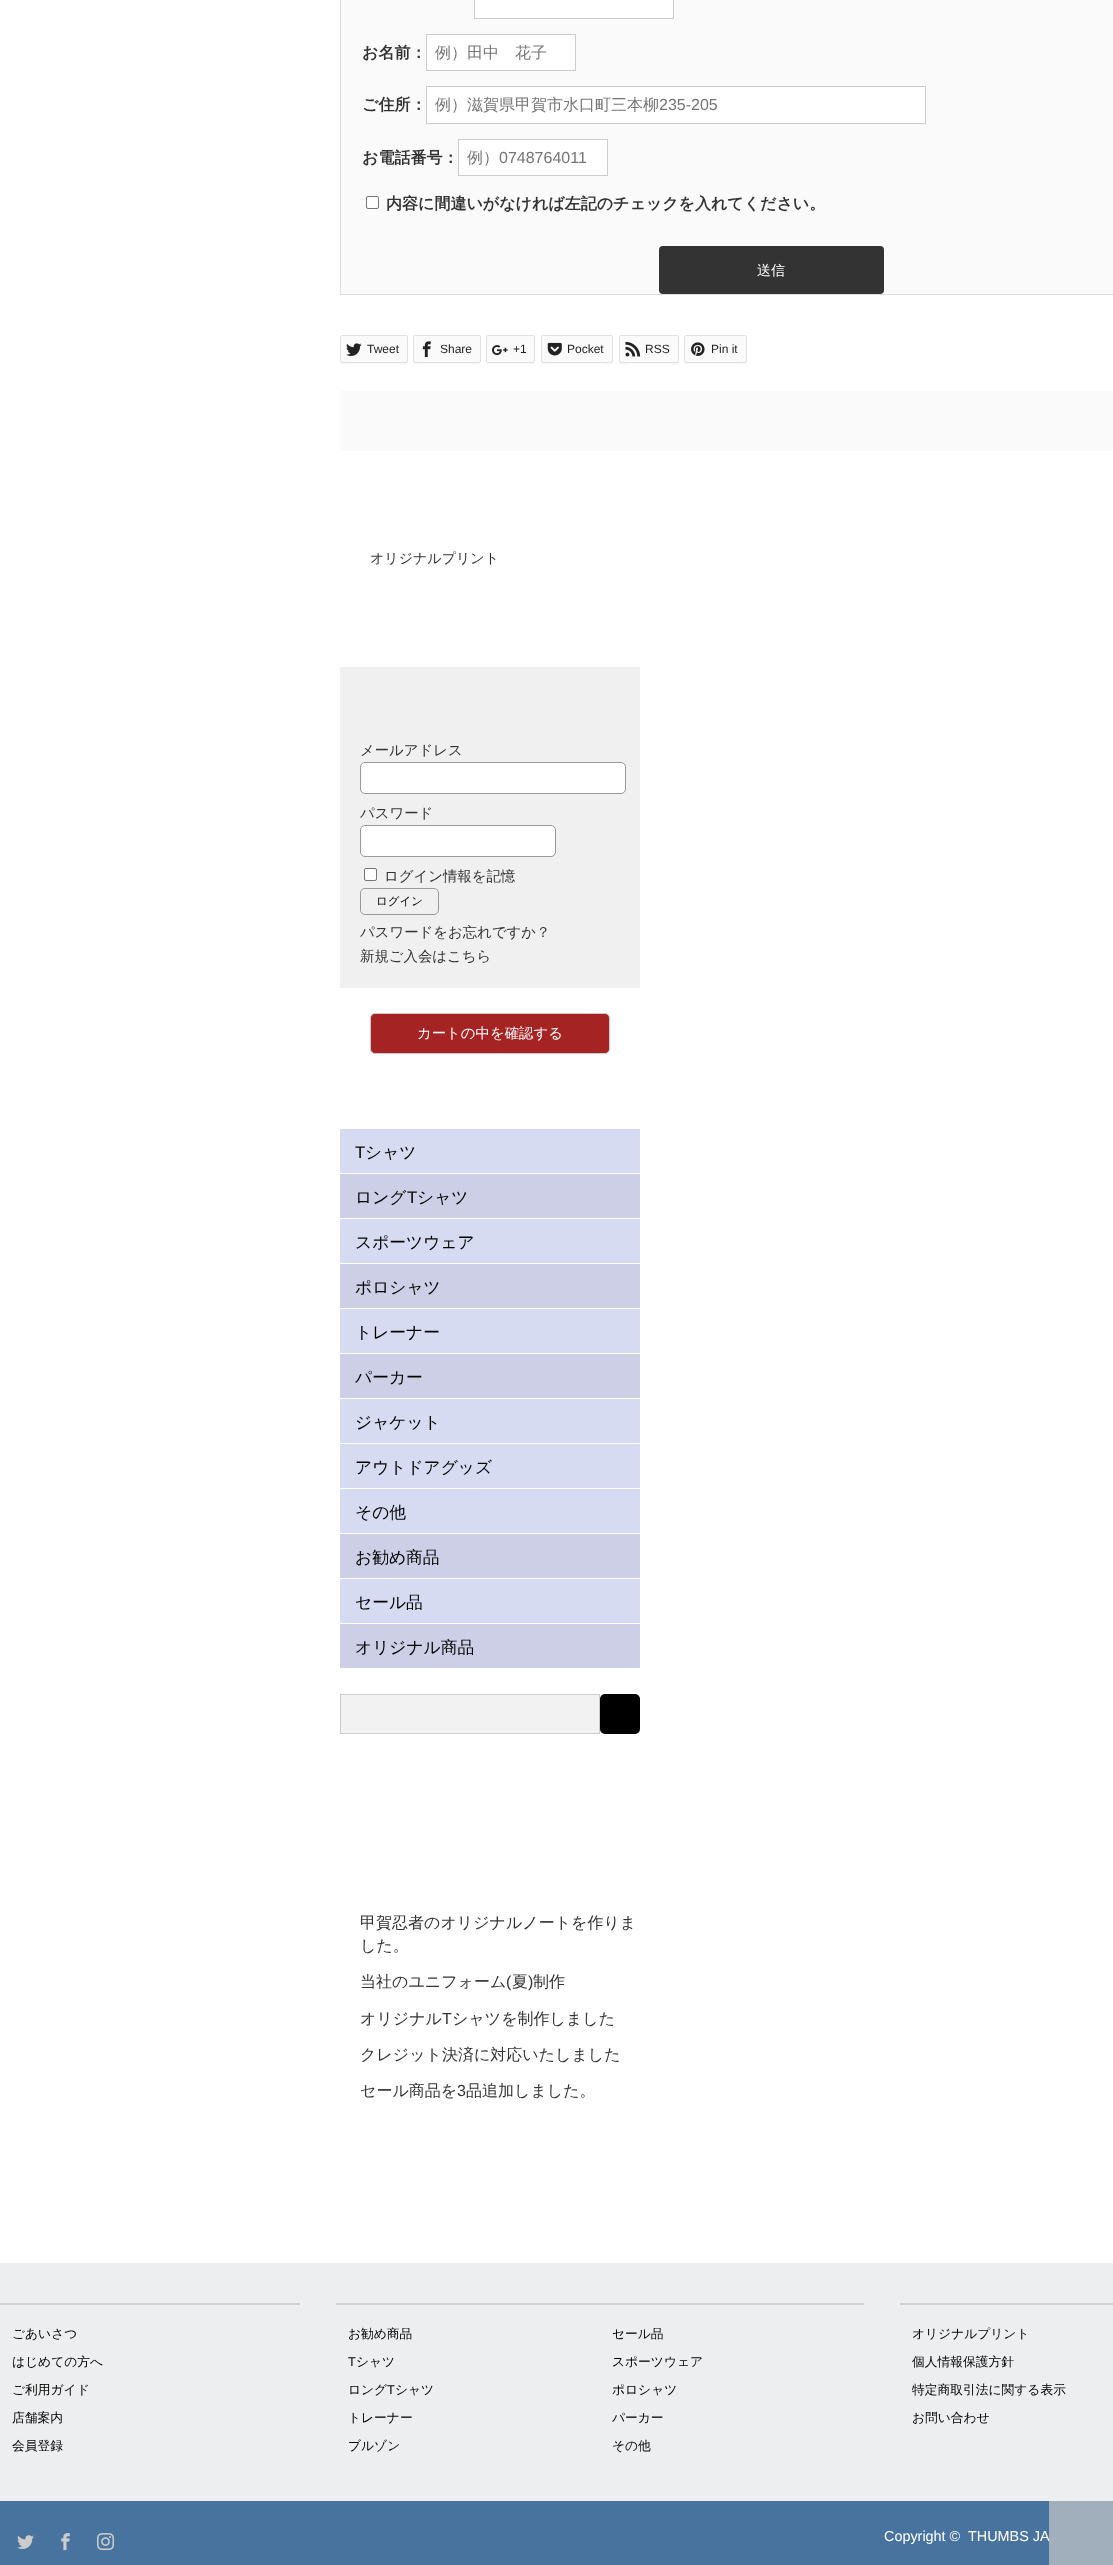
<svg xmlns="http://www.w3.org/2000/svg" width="1113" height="2565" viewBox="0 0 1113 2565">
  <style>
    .t1 { font: bold 16px WenQuanYi Zen Hei; fill: #333; }
    .t2 { font: 500 16px WenQuanYi Zen Hei; fill: #757575; }
    .t3 { font: 16px Liberation Sans; fill: #757575; }
    .t4 { font: 500 14px WenQuanYi Zen Hei; fill: #fff; }
    .t5 { font: 12px Liberation Sans; fill: #222; }
    .t6 { font: 500 14px WenQuanYi Zen Hei; fill: #333; }
    .t7 { font: 500 14.4px WenQuanYi Zen Hei; fill: #333; }
    .t8 { font: 500 11.5px WenQuanYi Zen Hei; fill: #000; }
    .t9 { font: 500 14.4px WenQuanYi Zen Hei; fill: #fff; }
    .t10 { font: 16.75px Liberation Sans; fill: #000; }
    .t11 { font: 500 16.75px WenQuanYi Zen Hei; fill: #000; }
    .t12 { font: 500 16px WenQuanYi Zen Hei; fill: #333; }
    .t13 { font: 16px Liberation Sans; fill: #333; }
    .t14 { font: 500 12.75px WenQuanYi Zen Hei; fill: #000; }
    .t15 { font: 12.75px Liberation Sans; fill: #000; }
    .t16 { font: 14.4px Liberation Sans; fill: #fff; }
  </style>
  <rect width="100%" height="100%" fill="#fff"/>
  <rect x="340.5" y="-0.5" width="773" height="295" fill="#fafafa" stroke="#ddd"/>
  <rect x="474.5" y="-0.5" width="199" height="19" fill="#fff" stroke="#ccc"/>
  <text x="362" y="58" class="t1">お名前：</text>
  <rect x="426.5" y="34.5" width="149" height="36" fill="#fff" stroke="#ccc"/>
  <text x="435" y="58" class="t2">例）田中　花子</text>
  <text x="362" y="110" class="t1">ご住所：</text>
  <rect x="426.5" y="86.5" width="499" height="37" fill="#fff" stroke="#ccc"/>
  <text x="435" y="110" class="t2">例）滋賀県甲賀市水口町三本柳</text>
  <text x="659" y="110" class="t3">235-205</text>
  <text x="362" y="163" class="t1">お電話番号：</text>
  <rect x="458.5" y="139.5" width="149" height="36" fill="#fff" stroke="#ccc"/>
  <text x="467" y="163" class="t2">例）</text>
  <text x="499" y="163" class="t3">0748764011</text>
  <rect x="366.5" y="196.5" width="12" height="12" rx="1.5" fill="#fff" stroke="#767676"/>
  <text x="386" y="209" class="t1">内容に間違いがなければ左記のチェックを入れてください。</text>
  <rect x="659" y="246" width="225" height="48" rx="4" fill="#333"/>
  <text x="757" y="275" class="t4">送信</text>
  <path d="M340 361C340 367 349 364 353 364H395C399 364 408 367 408 361C408 362 407 363 406 363H341Z" fill="#f7f7f7"/>
  <rect x="340.5" y="335.5" width="67" height="27" rx="1.5" fill="#fafafa" stroke="#e1e1e1"/>
  <image x="346" y="343" width="16" height="13" href="images/1.png"/>
  <text x="367" y="353" class="t5">Tweet</text>
  <path d="M413 361C413 367 422 364 426 364H468C472 364 481 367 481 361C481 362 480 363 479 363H414Z" fill="#f7f7f7"/>
  <rect x="413.5" y="335.5" width="67" height="27" rx="1.5" fill="#fafafa" stroke="#e1e1e1"/>
  <image x="422" y="341" width="9" height="16" href="images/2.png"/>
  <text x="440" y="353" class="t5">Share</text>
  <path d="M486 361C486 366 492 364 496 364H526C529 364 535 366 535 361C535 362 534 363 533 363H488C487 363 486 362 486 361Z" fill="#f7f7f7"/>
  <rect x="486.5" y="335.5" width="48" height="27" rx="1.5" fill="#fafafa" stroke="#e1e1e1"/>
  <image x="492" y="345" width="16" height="10" href="images/3.png"/>
  <text x="513" y="353" class="t5">+1</text>
  <path d="M541 361C541 367 551 364 554 364H600C603 364 613 367 613 361C613 362 612 363 611 363H542Z" fill="#f7f7f7"/>
  <rect x="541.5" y="335.5" width="71" height="27" rx="1.5" fill="#fafafa" stroke="#e1e1e1"/>
  <image x="547" y="342" width="15" height="14" href="images/4.png"/>
  <text x="567" y="353" class="t5">Pocket</text>
  <path d="M619 361C619 367 627 364 630 364H668C671 364 679 367 679 361L678 363H620Z" fill="#f7f7f7"/>
  <rect x="619.5" y="335.5" width="59" height="27" rx="1.5" fill="#fafafa" stroke="#e1e1e1"/>
  <image x="625" y="341" width="16" height="16" href="images/5.png"/>
  <text x="645" y="353" class="t5">RSS</text>
  <path d="M684 361C684 367 692 364 696 364H735C739 364 747 367 747 361L746 363H696C692 363 684 365 684 361Z" fill="#f7f7f7"/>
  <rect x="684.5" y="335.5" width="62" height="27" rx="1.5" fill="#fafafa" stroke="#e1e1e1"/>
  <image x="691" y="342" width="14" height="14" href="images/6.png"/>
  <text x="711" y="353" class="t5">Pin it</text>
  <rect x="340" y="391" width="773" height="60" fill="#fafafa"/>
  <text x="370" y="563" class="t6">オリジナルプリント</text>
  <rect x="340" y="667" width="300" height="321" fill="#f0f0f1"/>
  <text x="360" y="755" class="t7">メールアドレス</text>
  <rect x="360.5" y="762.5" width="265" height="31" rx="4.5" fill="#fff" stroke="#999"/>
  <text x="360" y="818" class="t7">パスワード</text>
  <rect x="360.5" y="825.5" width="195" height="31" rx="4.5" fill="#fff" stroke="#999"/>
  <rect x="364.5" y="868.5" width="12" height="12" rx="1.5" fill="#fff" stroke="#767676"/>
  <text x="384" y="881" class="t7">ログイン情報を記憶</text>
  <rect x="360.5" y="888.5" width="78" height="26" rx="4.5" fill="none" stroke="#999"/>
  <text x="376" y="905" class="t8">ログイン</text>
  <text x="360" y="937" class="t7">パスワードをお忘れですか？</text>
  <text x="360" y="961" class="t7">新規ご入会はこちら</text>
  <rect x="370.5" y="1013.5" width="239" height="40" rx="4.5" fill="#a62323" stroke="#ccc"/>
  <text x="417" y="1038" class="t9">カートの中を確認する</text>
  <rect x="340" y="1129" width="300" height="44" fill="#d7dbf2"/>
  <text x="355" y="1158" class="t10">T</text>
  <text x="365" y="1158" class="t11">シャツ</text>
  <rect x="340" y="1174" width="300" height="44" fill="#cccfe5"/>
  <text x="355" y="1203" class="t11">ロング</text>
  <text x="407" y="1203" class="t10">T</text>
  <text x="417" y="1203" class="t11">シャツ</text>
  <rect x="340" y="1219" width="300" height="44" fill="#d7dbf2"/>
  <text x="355" y="1248" class="t11">スポーツウェア</text>
  <rect x="340" y="1264" width="300" height="44" fill="#cccfe5"/>
  <text x="355" y="1293" class="t11">ポロシャツ</text>
  <rect x="340" y="1309" width="300" height="44" fill="#d7dbf2"/>
  <text x="355" y="1338" class="t11">トレーナー</text>
  <rect x="340" y="1354" width="300" height="44" fill="#cccfe5"/>
  <text x="355" y="1383" class="t11">パーカー</text>
  <rect x="340" y="1399" width="300" height="44" fill="#d7dbf2"/>
  <text x="355" y="1428" class="t11">ジャケット</text>
  <rect x="340" y="1444" width="300" height="44" fill="#d7dbf2"/>
  <text x="355" y="1473" class="t11">アウトドアグッズ</text>
  <rect x="340" y="1489" width="300" height="44" fill="#d7dbf2"/>
  <text x="355" y="1518" class="t11">その他</text>
  <rect x="340" y="1534" width="300" height="44" fill="#cccfe5"/>
  <text x="355" y="1563" class="t11">お勧め商品</text>
  <rect x="340" y="1579" width="300" height="44" fill="#d7dbf2"/>
  <text x="355" y="1608" class="t11">セール品</text>
  <rect x="340" y="1624" width="300" height="44" fill="#cccfe5"/>
  <text x="355" y="1653" class="t11">オリジナル商品</text>
  <rect x="340.5" y="1694.5" width="259" height="39" fill="#f2f2f2" stroke="#ccc"/>
  <rect x="600" y="1694" width="40" height="40" rx="5" fill="#000"/>
  <text x="360" y="1928" class="t12">甲賀忍者のオリジナルノートを作りま</text>
  <text x="360" y="1951" class="t12">した。</text>
  <text x="360" y="1987" class="t12">当社のユニフォーム</text>
  <text x="506" y="1987" class="t13">(</text>
  <text x="512" y="1987" class="t12">夏</text>
  <text x="528" y="1987" class="t13">)</text>
  <text x="533" y="1987" class="t12">制作</text>
  <text x="360" y="2024" class="t12">オリジナル</text>
  <text x="442" y="2024" class="t13">T</text>
  <text x="452" y="2024" class="t12">シャツを制作しました</text>
  <text x="360" y="2060" class="t12">クレジット決済に対応いたしました</text>
  <text x="360" y="2096" class="t12">セール商品を</text>
  <text x="457" y="2096" class="t13">3</text>
  <text x="466" y="2096" class="t12">品追加しました。</text>
  <rect x="0" y="2263" width="1113" height="238" fill="#eceef0"/>
  <rect x="0" y="2303" width="300" height="2" fill="#cfd3d7"/>
  <text x="12" y="2338" class="t14">ごあいさつ</text>
  <text x="12" y="2366" class="t14">はじめての方へ</text>
  <text x="12" y="2394" class="t14">ご利用ガイド</text>
  <text x="12" y="2422" class="t14">店舗案内</text>
  <text x="12" y="2450" class="t14">会員登録</text>
  <rect x="336" y="2303" width="528" height="2" fill="#cfd3d7"/>
  <text x="348" y="2338" class="t14">お勧め商品</text>
  <text x="612" y="2338" class="t14">セール品</text>
  <text x="348" y="2366" class="t15">T</text>
  <text x="356" y="2366" class="t14">シャツ</text>
  <text x="612" y="2366" class="t14">スポーツウェア</text>
  <text x="348" y="2394" class="t14">ロング</text>
  <text x="387" y="2394" class="t15">T</text>
  <text x="395" y="2394" class="t14">シャツ</text>
  <text x="612" y="2394" class="t14">ポロシャツ</text>
  <text x="348" y="2422" class="t14">トレーナー</text>
  <text x="612" y="2422" class="t14">パーカー</text>
  <text x="348" y="2450" class="t14">ブルゾン</text>
  <text x="612" y="2450" class="t14">その他</text>
  <rect x="900" y="2303" width="213" height="2" fill="#cfd3d7"/>
  <text x="912" y="2338" class="t14">オリジナルプリント</text>
  <text x="912" y="2366" class="t14">個人情報保護方針</text>
  <text x="912" y="2394" class="t14">特定商取引法に関する表示</text>
  <text x="912" y="2422" class="t14">お問い合わせ</text>
  <rect x="0" y="2501" width="1113" height="64" fill="#48739f"/>
  <image x="17" y="2535" width="17" height="14" href="images/7.png"/>
  <image x="61" y="2533" width="9" height="18" href="images/8.png"/>
  <image x="97" y="2533" width="17" height="18" href="images/9.png"/>
  <text x="884" y="2541" class="t16">Copyright ©</text>
  <text x="968" y="2541" class="t16">THUMBS JA</text>
  <rect x="1049" y="2501" width="64" height="64" fill="#c8c8c8b3"/>
</svg>
